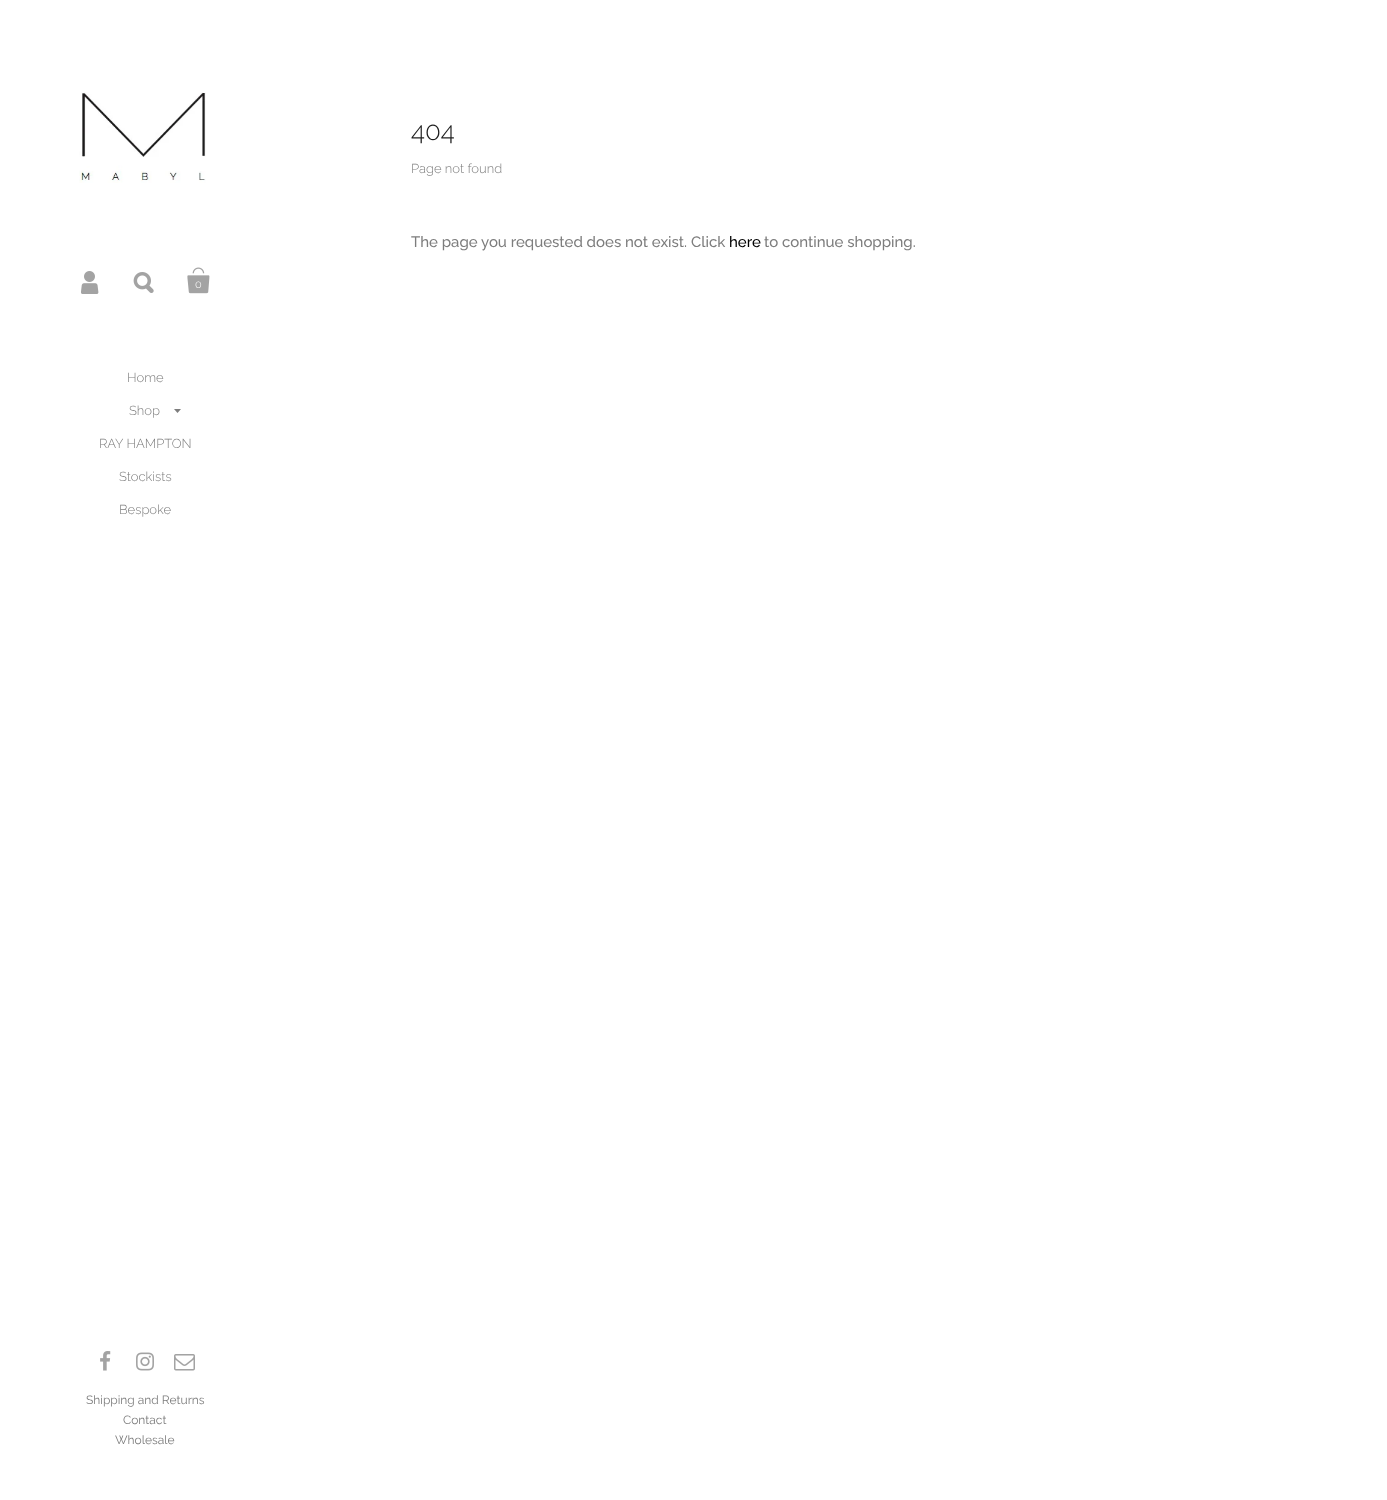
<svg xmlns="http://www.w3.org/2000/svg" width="1387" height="1500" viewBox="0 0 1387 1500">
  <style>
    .t1 { font: 300 26px Raleway; fill: #1d1d1d; }
    .t2 { font: 300 13px Raleway; fill: #7d7d7d; }
    .t3 { font: 500 15px Raleway; fill: #7d7d7d; }
    .t4 { font: 500 15px Raleway; fill: #000; }
    .t5 { font: 300 11px Raleway; fill: #fff; }
    .t6 { font: 12px Raleway; fill: #7d7d7d; }
  </style>
  <rect width="100%" height="100%" fill="#fff"/>
  <text x="411" y="140" class="t1">404</text>
  <text x="411" y="173" class="t2">Page not found</text>
  <text x="411" y="247" class="t3">The page you requested does not exist. Click</text>
  <text x="729" y="247" class="t4">here</text>
  <text x="764" y="247" class="t3">to continue shopping.</text>
  <image x="79" y="92" width="127" height="91" href="images/1.png"/>
  <image x="81" y="271" width="18" height="23" href="images/2.png"/>
  <image x="133" y="272" width="21" height="21" href="images/3.png"/>
  <image x="187" y="267" width="23" height="27" href="images/4.png"/>
  <text x="195" y="288" class="t5">0</text>
  <text x="127" y="382" class="t2">Home</text>
  <text x="129" y="415" class="t2">Shop</text>
  <path d="M181 409L177.5 413L174 409Z" fill="#7d7d7d"/>
  <text x="99" y="448" class="t2">RAY HAMPTON</text>
  <text x="119" y="481" class="t2">Stockists</text>
  <text x="119" y="514" class="t2">Bespoke</text>
  <image x="100" y="1351" width="11" height="20" href="images/5.png"/>
  <image x="136" y="1352" width="18" height="19" href="images/6.png"/>
  <image x="174" y="1354" width="21" height="17" href="images/7.png"/>
  <text x="86" y="1404" class="t6">Shipping and Returns</text>
  <text x="123" y="1424" class="t6">Contact</text>
  <text x="115" y="1444" class="t6">Wholesale</text>
</svg>
